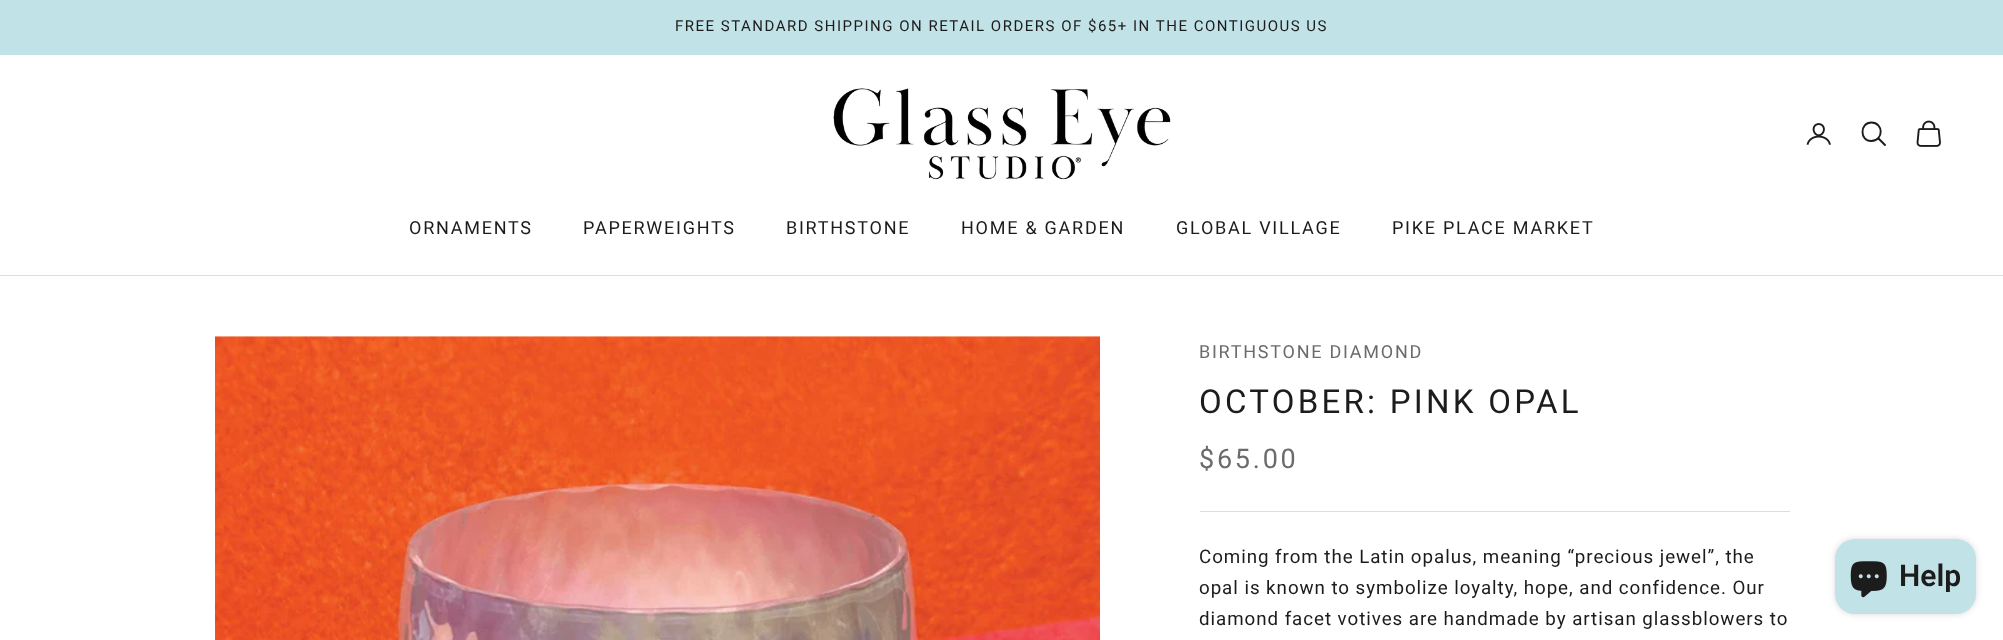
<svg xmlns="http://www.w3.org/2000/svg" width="2003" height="640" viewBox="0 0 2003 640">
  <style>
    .t1 { font: 15px Roboto; letter-spacing: 1.5px; fill: #1c1c1c; }
    .t2 { font: 18px Roboto; letter-spacing: 1.75px; fill: #1c1c1c; }
    .t3 { font: 18px Roboto; letter-spacing: 1.75px; fill: #6b6b6b; }
    .t4 { font: 33px Roboto; letter-spacing: 3.25px; fill: #1c1c1c; }
    .t5 { font: 27px Roboto; letter-spacing: 2.75px; fill: #6b6b6b; }
    .t6 { font: 18.75px Roboto; letter-spacing: 0.95px; fill: #1c1c1c; }
    .t7 { font: 600 30px Roboto; fill: #1c1c1c; }
  </style>
  <rect width="100%" height="100%" fill="#fff"/>
  <rect x="0" y="0" width="2003" height="55" fill="#c1e2e7"/>
  <text x="675" y="31" class="t1">FREE STANDARD SHIPPING ON RETAIL ORDERS OF $65+ IN THE CONTIGUOUS US</text>
  <rect x="0" y="275" width="2003" height="1" fill="#ddd"/>
  <image x="833" y="88" width="338" height="92" href="images/1.png"/>
  <image x="1806" y="123" width="25" height="22" href="images/2.png"/>
  <path d="M1871.5 122.5C1859.5 122.5 1859.5 141.5 1871.5 141C1884 140.5 1883.5 122.5 1871.5 122.5Z" fill="none" stroke="#1c1c1c" stroke-width="1.9"/>
  <path d="M1878.5 138.5L1885 145" fill="none" stroke="#1c1c1c" stroke-width="1.9" stroke-linecap="round"/>
  <image x="1916" y="120" width="25" height="27" href="images/3.png"/>
  <text x="409" y="234" class="t2">ORNAMENTS</text>
  <text x="583" y="234" class="t2">PAPERWEIGHTS</text>
  <text x="786" y="234" class="t2">BIRTHSTONE</text>
  <text x="961" y="234" class="t2">HOME &amp; GARDEN</text>
  <text x="1176" y="234" class="t2">GLOBAL VILLAGE</text>
  <text x="1392" y="234" class="t2">PIKE PLACE MARKET</text>
  <image x="215" y="336" width="885" height="304" href="images/4.png"/>
  <text x="1199" y="358" class="t3">BIRTHSTONE DIAMOND</text>
  <text x="1199" y="413" class="t4">OCTOBER: PINK OPAL</text>
  <text x="1199" y="468" class="t5">$65.00</text>
  <rect x="1200" y="511" width="590" height="1" fill="#ddd"/>
  <text x="1199" y="563" class="t6">Coming from the Latin opalus, meaning “precious jewel”, the</text>
  <text x="1199" y="594" class="t6">opal is known to symbolize loyalty, hope, and confidence. Our</text>
  <text x="1199" y="625" class="t6">diamond facet votives are handmade by artisan glassblowers to</text>
  <rect x="1835" y="539" width="141" height="75" rx="20" fill="#00000026" filter="blur(3px)"/>
  <rect x="1835" y="539" width="141" height="75" rx="20" fill="#c1e2e7"/>
  <image x="1850" y="561" width="37" height="37" href="images/5.png"/>
  <text x="1899" y="586" class="t7">Help</text>
</svg>
